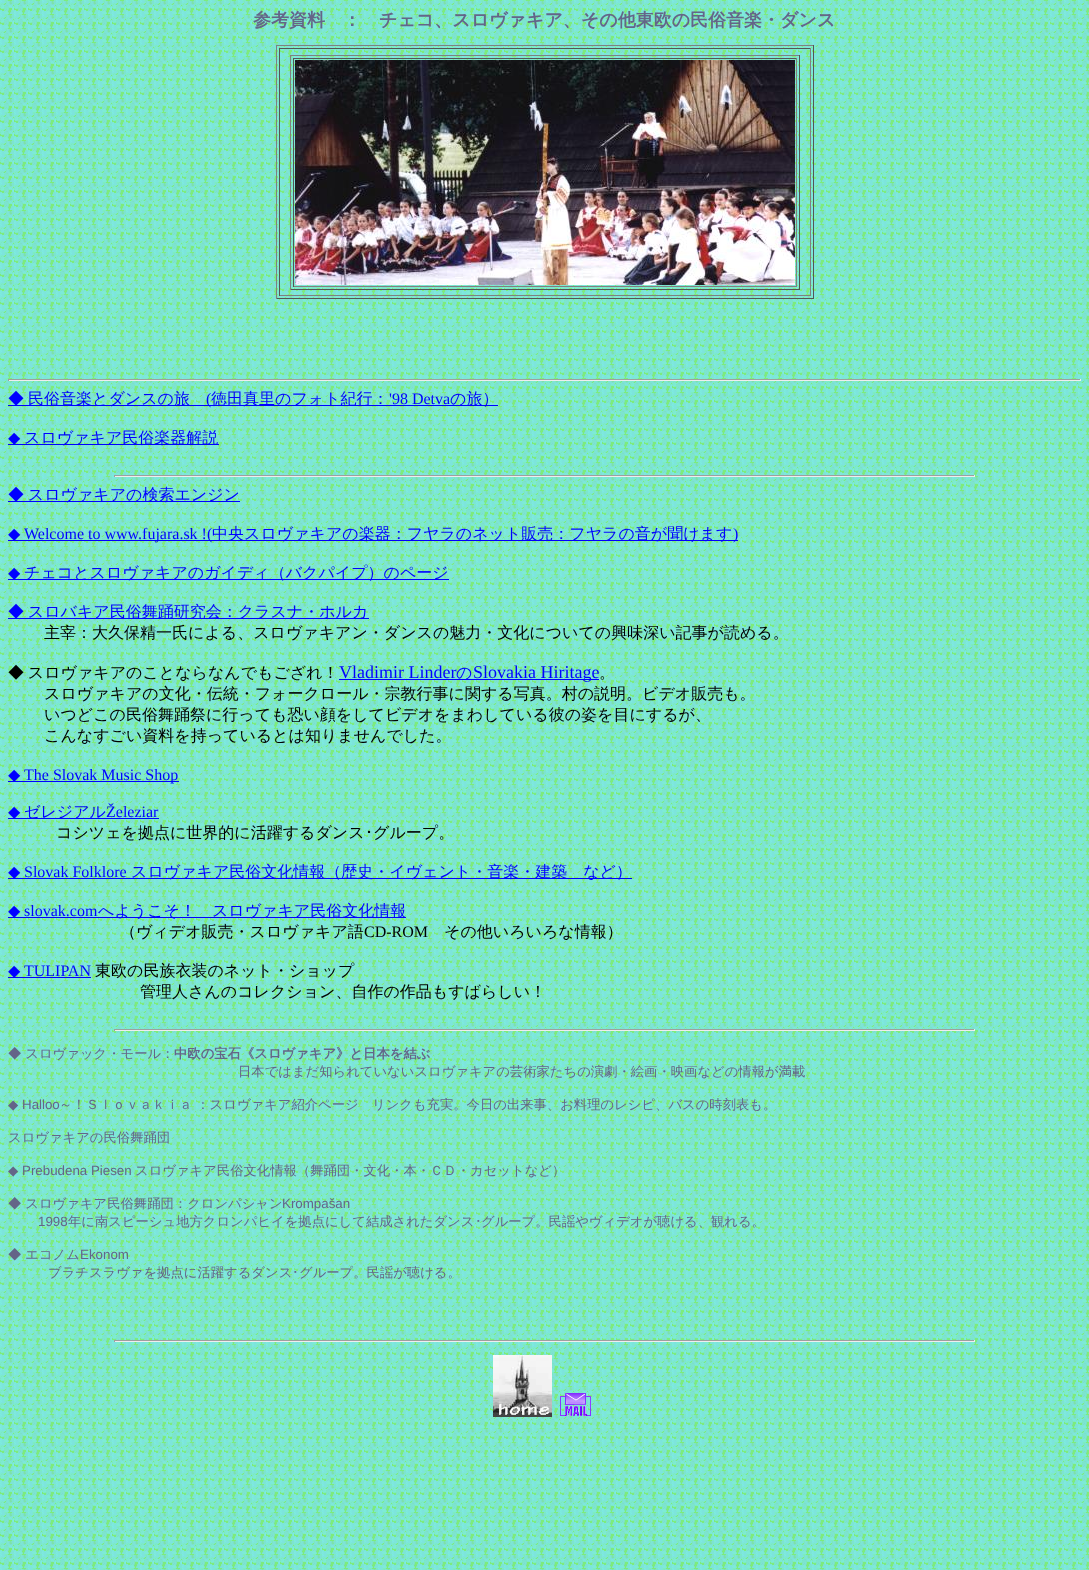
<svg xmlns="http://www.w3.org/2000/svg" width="1089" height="1570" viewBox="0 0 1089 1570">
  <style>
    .t1 { font: bold 18px WenQuanYi Zen Hei; fill: #646588; }
    .t2 { font: 500 16px WenQuanYi Zen Hei; fill: #00f; }
    .t3 { font: 16px Liberation Serif; fill: #00f; }
    .t4 { font: 16px DejaVu Sans; fill: #00f; }
    .t5 { font: 500 16px WenQuanYi Zen Hei; fill: #000; }
    .t6 { font: 18px Liberation Serif; fill: #00f; }
    .t7 { font: 16px IPAGothic; fill: #000; }
    .t8 { font: 16px Liberation Serif; fill: #000; }
    .t9 { font: 500 13.33px WenQuanYi Zen Hei; fill: #646588; }
    .t10 { font: bold 13.33px WenQuanYi Zen Hei; fill: #646588; }
    .t11 { font: 13.33px DejaVu Sans; fill: #646588; }
    .t12 { font: 13.33px Liberation Sans; fill: #646588; }
    .t13 { font: 13.33px IPAGothic; fill: #646588; }
  </style>
  <rect width="100%" height="100%" fill="#fff"/>
  <image x="0" y="0" width="1089" height="1570" href="images/1.png"/>
  <text x="253" y="26" class="t1">参考資料　：　チェコ、スロヴァキア、その他東欧の民俗音楽・ダンス</text>
  <rect x="276" y="45" width="538" height="1" fill="#808080"/>
  <rect x="813" y="45" width="1" height="254" fill="#555"/>
  <rect x="276" y="298" width="538" height="1" fill="#555"/>
  <rect x="276" y="45" width="1" height="254" fill="#808080"/>
  <rect x="279" y="48" width="532" height="1" fill="#555"/>
  <rect x="810" y="48" width="1" height="248" fill="#808080"/>
  <rect x="279" y="295" width="532" height="1" fill="#808080"/>
  <rect x="279" y="48" width="1" height="248" fill="#555"/>
  <rect x="290" y="55" width="510" height="1" fill="#808080"/>
  <rect x="799" y="55" width="1" height="235" fill="#555"/>
  <rect x="290" y="289" width="510" height="1" fill="#555"/>
  <rect x="290" y="55" width="1" height="235" fill="#808080"/>
  <rect x="293" y="58" width="504" height="1" fill="#555"/>
  <rect x="796" y="58" width="1" height="229" fill="#808080"/>
  <rect x="293" y="286" width="504" height="1" fill="#808080"/>
  <rect x="293" y="58" width="1" height="229" fill="#555"/>
  <image x="295" y="60" width="500" height="225" href="images/2.png"/>
  <rect x="8" y="379" width="1073" height="1" fill="#9f9f9f"/>
  <rect x="1080" y="379" width="1" height="2" fill="#eee"/>
  <rect x="8" y="380" width="1073" height="1" fill="#eee"/>
  <rect x="8" y="379" width="1" height="2" fill="#9f9f9f"/>
  <rect x="8" y="405" width="490" height="1" fill="#00f"/>
  <text x="8" y="404" class="t2">◆</text>
  <text x="28" y="404" class="t2">民俗音楽とダンスの旅</text>
  <text x="206" y="404" class="t3">(</text>
  <text x="211" y="404" class="t2">徳田真里のフォト紀行：</text>
  <text x="389" y="404" class="t3">'98 Detva</text>
  <text x="450" y="404" class="t2">の旅）</text>
  <rect x="8" y="444" width="211" height="1" fill="#00f"/>
  <text x="8" y="443" class="t4">◆</text>
  <text x="24" y="443" class="t2">スロヴァキア民俗楽器解説</text>
  <rect x="114" y="475" width="861" height="1" fill="#9f9f9f"/>
  <rect x="974" y="475" width="1" height="2" fill="#eee"/>
  <rect x="114" y="476" width="861" height="1" fill="#eee"/>
  <rect x="114" y="475" width="1" height="2" fill="#9f9f9f"/>
  <rect x="8" y="501" width="232" height="1" fill="#00f"/>
  <text x="8" y="500" word-spacing="-1" class="t2">◆ スロヴァキアの検索エンジン</text>
  <rect x="8" y="540" width="730" height="1" fill="#00f"/>
  <text x="8" y="539" class="t4">◆</text>
  <text x="24" y="539" class="t3">Welcome to www.fujara.sk !(</text>
  <text x="212" y="539" class="t2">中央スロヴァキアの楽器：フヤラのネット販売：フヤラの音が聞けます</text>
  <text x="733" y="539" class="t3">)</text>
  <rect x="8" y="579" width="441" height="1" fill="#00f"/>
  <text x="8" y="578" class="t4">◆</text>
  <text x="24" y="578" class="t2">チェコとスロヴァキアのガイディ（バクパイプ）のページ</text>
  <rect x="8" y="618" width="361" height="1" fill="#00f"/>
  <text x="8" y="617" word-spacing="-1" class="t2">◆ スロバキア民俗舞踊研究会：クラスナ・ホルカ</text>
  <text x="44" y="638" class="t5">主宰：大久保精一氏による、スロヴァキアン・ダンスの魅力・文化についての興味深い記事が読める。</text>
  <text x="8" y="678" word-spacing="-1" class="t5">◆ スロヴァキアのことならなんでもござれ！</text>
  <text x="339" y="678" class="t6">Vladimir Linder</text>
  <rect x="339" y="679" width="260" height="1" fill="#00f"/>
  <text x="456" y="678" class="t2">の</text>
  <text x="473" y="678" class="t6">Slovakia Hiritage</text>
  <text x="599" y="678" class="t5">。</text>
  <text x="44" y="699" class="t5">スロヴァキアの文化・伝統・フォークロール・宗教行事に関する写真。村の説明。ビデオ販売も。</text>
  <text x="44" y="720" class="t5">いつどこの民俗舞踊祭に行っても恐い顔をしてビデオをまわしている彼の姿を目にするが、</text>
  <text x="44" y="741" class="t5">こんなすごい資料を持っているとは知りませんでした。</text>
  <rect x="8" y="781" width="171" height="1" fill="#00f"/>
  <text x="8" y="780" class="t4">◆</text>
  <text x="24" y="780" class="t3">The Slovak Music Shop</text>
  <rect x="8" y="818" width="151" height="1" fill="#00f"/>
  <text x="8" y="817" class="t4">◆</text>
  <text x="24" y="817" class="t2">ゼレジアル</text>
  <text x="106" y="817" class="t3">Železiar</text>
  <text x="56" y="838" class="t5">コシツェを拠点に世界的に活躍するダンス</text>
  <text x="365" y="838" class="t7">･</text>
  <text x="373" y="838" class="t5">グループ。</text>
  <rect x="8" y="878" width="624" height="1" fill="#00f"/>
  <text x="8" y="877" class="t4">◆</text>
  <text x="24" y="877" class="t3">Slovak Folklore</text>
  <text x="131" y="877" class="t2">スロヴァキア民俗文化情報（歴史・イヴェント・音楽・建築　など）</text>
  <rect x="8" y="917" width="398" height="1" fill="#00f"/>
  <text x="8" y="916" class="t4">◆</text>
  <text x="24" y="916" class="t3">slovak.com</text>
  <text x="98" y="916" class="t2">へようこそ！　スロヴァキア民俗文化情報</text>
  <text x="120" y="937" class="t5">（ヴィデオ販売・スロヴァキア語</text>
  <text x="364" y="937" class="t8">CD-ROM</text>
  <text x="444" y="937" class="t5">その他いろいろな情報）</text>
  <rect x="8" y="977" width="83" height="1" fill="#00f"/>
  <text x="8" y="976" class="t4">◆</text>
  <text x="24" y="976" class="t3">TULIPAN</text>
  <text x="95" y="976" class="t5">東欧の民族衣装のネット・ショップ</text>
  <text x="140" y="997" class="t5">管理人さんのコレクション、自作の作品もすばらしい！</text>
  <rect x="114" y="1029" width="861" height="1" fill="#9f9f9f"/>
  <rect x="974" y="1029" width="1" height="2" fill="#eee"/>
  <rect x="114" y="1030" width="861" height="1" fill="#eee"/>
  <rect x="114" y="1029" width="1" height="2" fill="#9f9f9f"/>
  <text x="8" y="1058" class="t9">◆ スロヴァック・モール：</text>
  <text x="174" y="1058" class="t10">中欧の宝石《スロヴァキア》と日本を結ぶ</text>
  <text x="238" y="1076" class="t9">日本ではまだ知られていないスロヴァキアの芸術家たちの演劇・絵画・映画などの情報が満載</text>
  <text x="8" y="1109" class="t11">◆</text>
  <text x="22" y="1109" class="t12">Halloo</text>
  <text x="59" y="1109" class="t9">～！Ｓｌｏｖａｋｉａ ：スロヴァキア紹介ページ　リンクも充実。今日の出来事、お料理のレシピ、バスの時刻表も。</text>
  <text x="8" y="1142" class="t9">スロヴァキアの民俗舞踊団</text>
  <text x="8" y="1175" class="t11">◆</text>
  <text x="22" y="1175" class="t12">Prebudena Piesen</text>
  <text x="135" y="1175" class="t9">スロヴァキア民俗文化情報（舞踊団・文化・本・ＣＤ・カセットなど）</text>
  <text x="8" y="1208" class="t9">◆ スロヴァキア民俗舞踊団：クロンパシャン</text>
  <text x="282" y="1208" class="t12">Krompašan</text>
  <text x="38" y="1226" class="t12">1998</text>
  <text x="68" y="1226" class="t9">年に南スピーシュ地方クロンパヒイを拠点にして結成されたダンス</text>
  <text x="475" y="1226" class="t13">･</text>
  <text x="481" y="1226" class="t9">グループ。民謡やヴィデオが聴ける、観れる。</text>
  <text x="8" y="1259" class="t9">◆ エコノム</text>
  <text x="80" y="1259" class="t12">Ekonom</text>
  <text x="48" y="1277" class="t9">ブラチスラヴァを拠点に活躍するダンス</text>
  <text x="292" y="1277" class="t13">･</text>
  <text x="299" y="1277" class="t9">グループ。民謡が聴ける。</text>
  <rect x="114" y="1340" width="861" height="1" fill="#9f9f9f"/>
  <rect x="974" y="1340" width="1" height="2" fill="#eee"/>
  <rect x="114" y="1341" width="861" height="1" fill="#eee"/>
  <rect x="114" y="1340" width="1" height="2" fill="#9f9f9f"/>
  <image x="493" y="1355" width="59" height="62" href="images/3.png"/>
  <image x="560" y="1393" width="31" height="23" href="images/4.png"/>
</svg>
